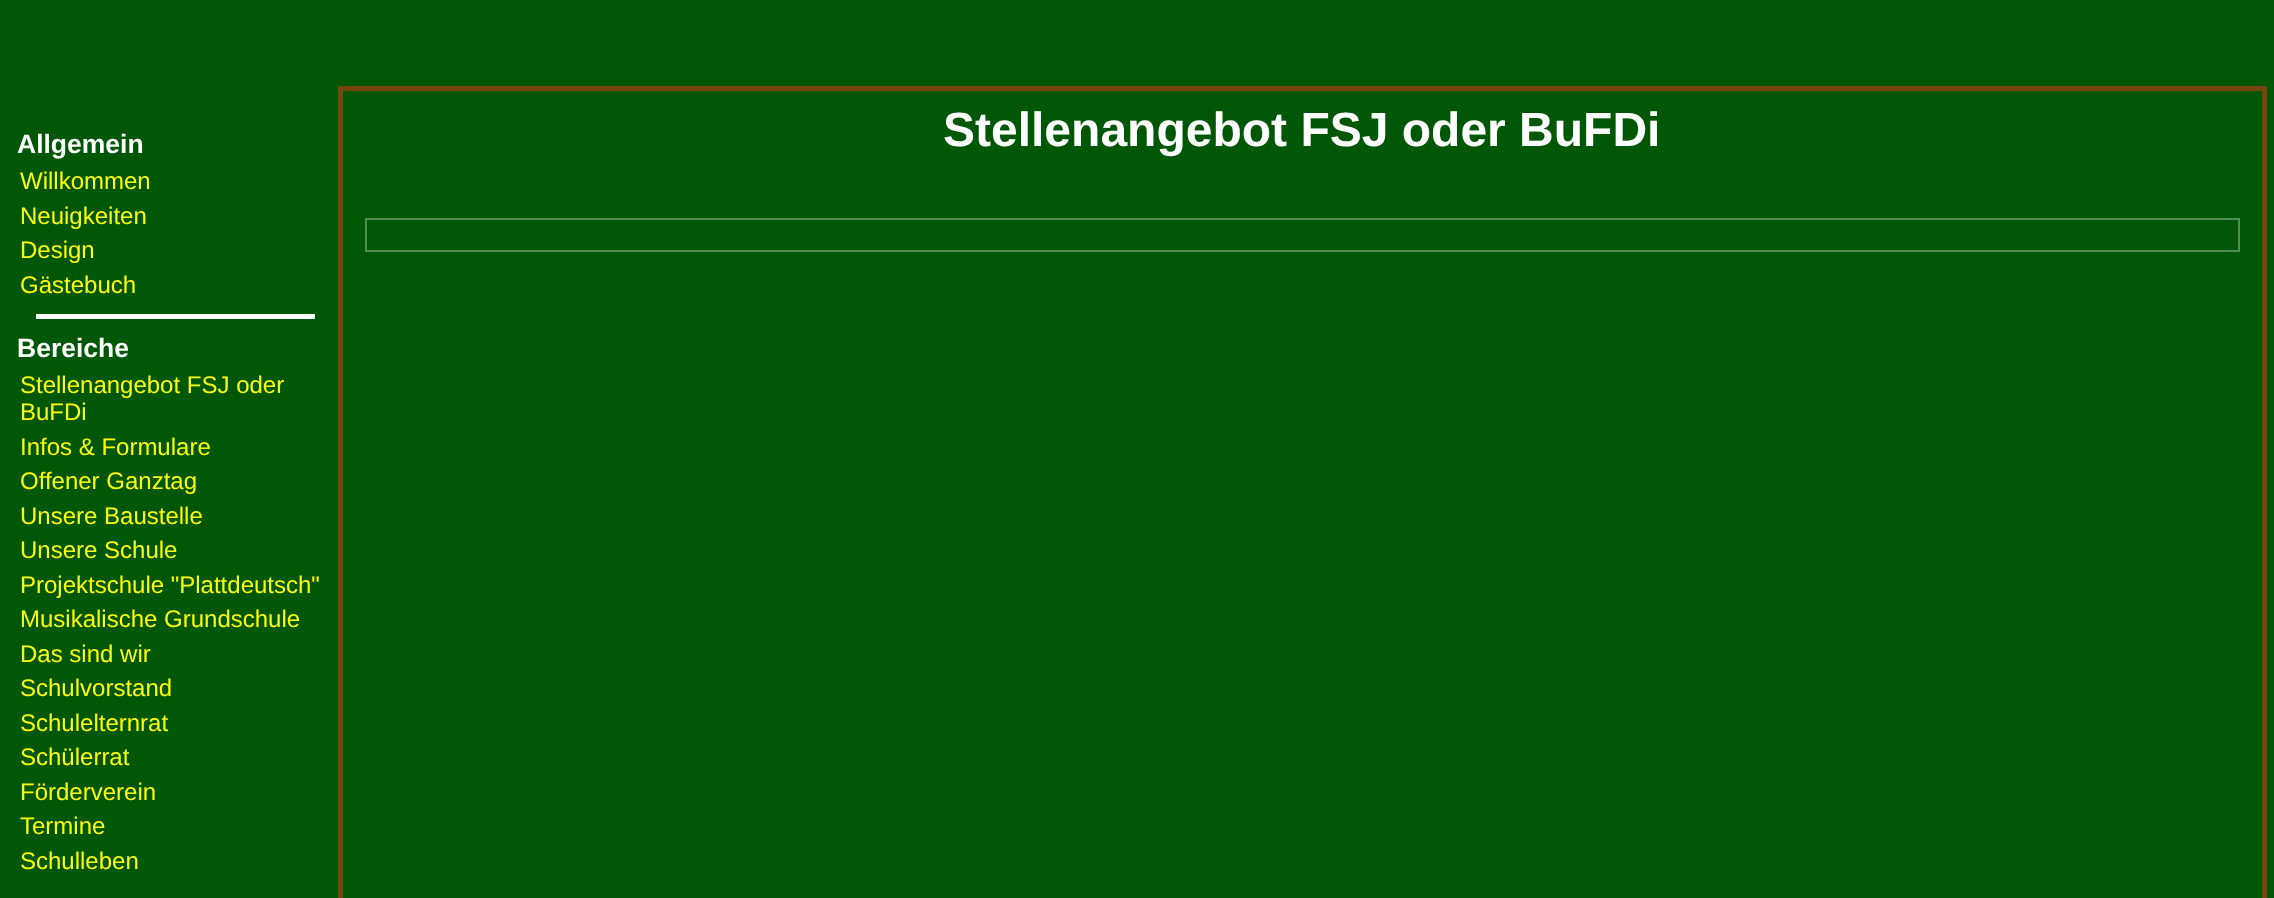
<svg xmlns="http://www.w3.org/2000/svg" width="2274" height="898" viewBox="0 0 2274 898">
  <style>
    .t1 { font: bold 26.5px Liberation Sans; fill: #fff; }
    .t2 { font: 24px Liberation Sans; fill: #fdfa0f; }
    .t3 { font: bold 48px Liberation Sans; fill: #fff; }
  </style>
  <rect width="100%" height="100%" fill="#005706"/>
  <text x="17" y="153" class="t1">Allgemein</text>
  <text x="20" y="189" class="t2">Willkommen</text>
  <text x="20" y="224" class="t2">Neuigkeiten</text>
  <text x="20" y="258" class="t2">Design</text>
  <text x="20" y="293" class="t2">Gästebuch</text>
  <rect x="36" y="314" width="279" height="5" fill="#fff"/>
  <text x="17" y="357" class="t1">Bereiche</text>
  <text x="20" y="393" class="t2">Stellenangebot FSJ oder</text>
  <text x="20" y="420" class="t2">BuFDi</text>
  <text x="20" y="455" class="t2">Infos &amp; Formulare</text>
  <text x="20" y="489" class="t2">Offener Ganztag</text>
  <text x="20" y="524" class="t2">Unsere Baustelle</text>
  <text x="20" y="558" class="t2">Unsere Schule</text>
  <text x="20" y="593" class="t2">Projektschule "Plattdeutsch"</text>
  <text x="20" y="627" class="t2">Musikalische Grundschule</text>
  <text x="20" y="662" class="t2">Das sind wir</text>
  <text x="20" y="696" class="t2">Schulvorstand</text>
  <text x="20" y="731" class="t2">Schulelternrat</text>
  <text x="20" y="765" class="t2">Schülerrat</text>
  <text x="20" y="800" class="t2">Förderverein</text>
  <text x="20" y="834" class="t2">Termine</text>
  <text x="20" y="869" class="t2">Schulleben</text>
  <rect x="340.5" y="88.5" width="1924" height="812" fill="none" stroke="#7a440e" stroke-width="5"/>
  <text x="943" y="146" class="t3">Stellenangebot FSJ oder BuFDi</text>
  <rect x="366" y="219" width="1873" height="32" fill="none" stroke="#508c54" stroke-width="2"/>
</svg>
